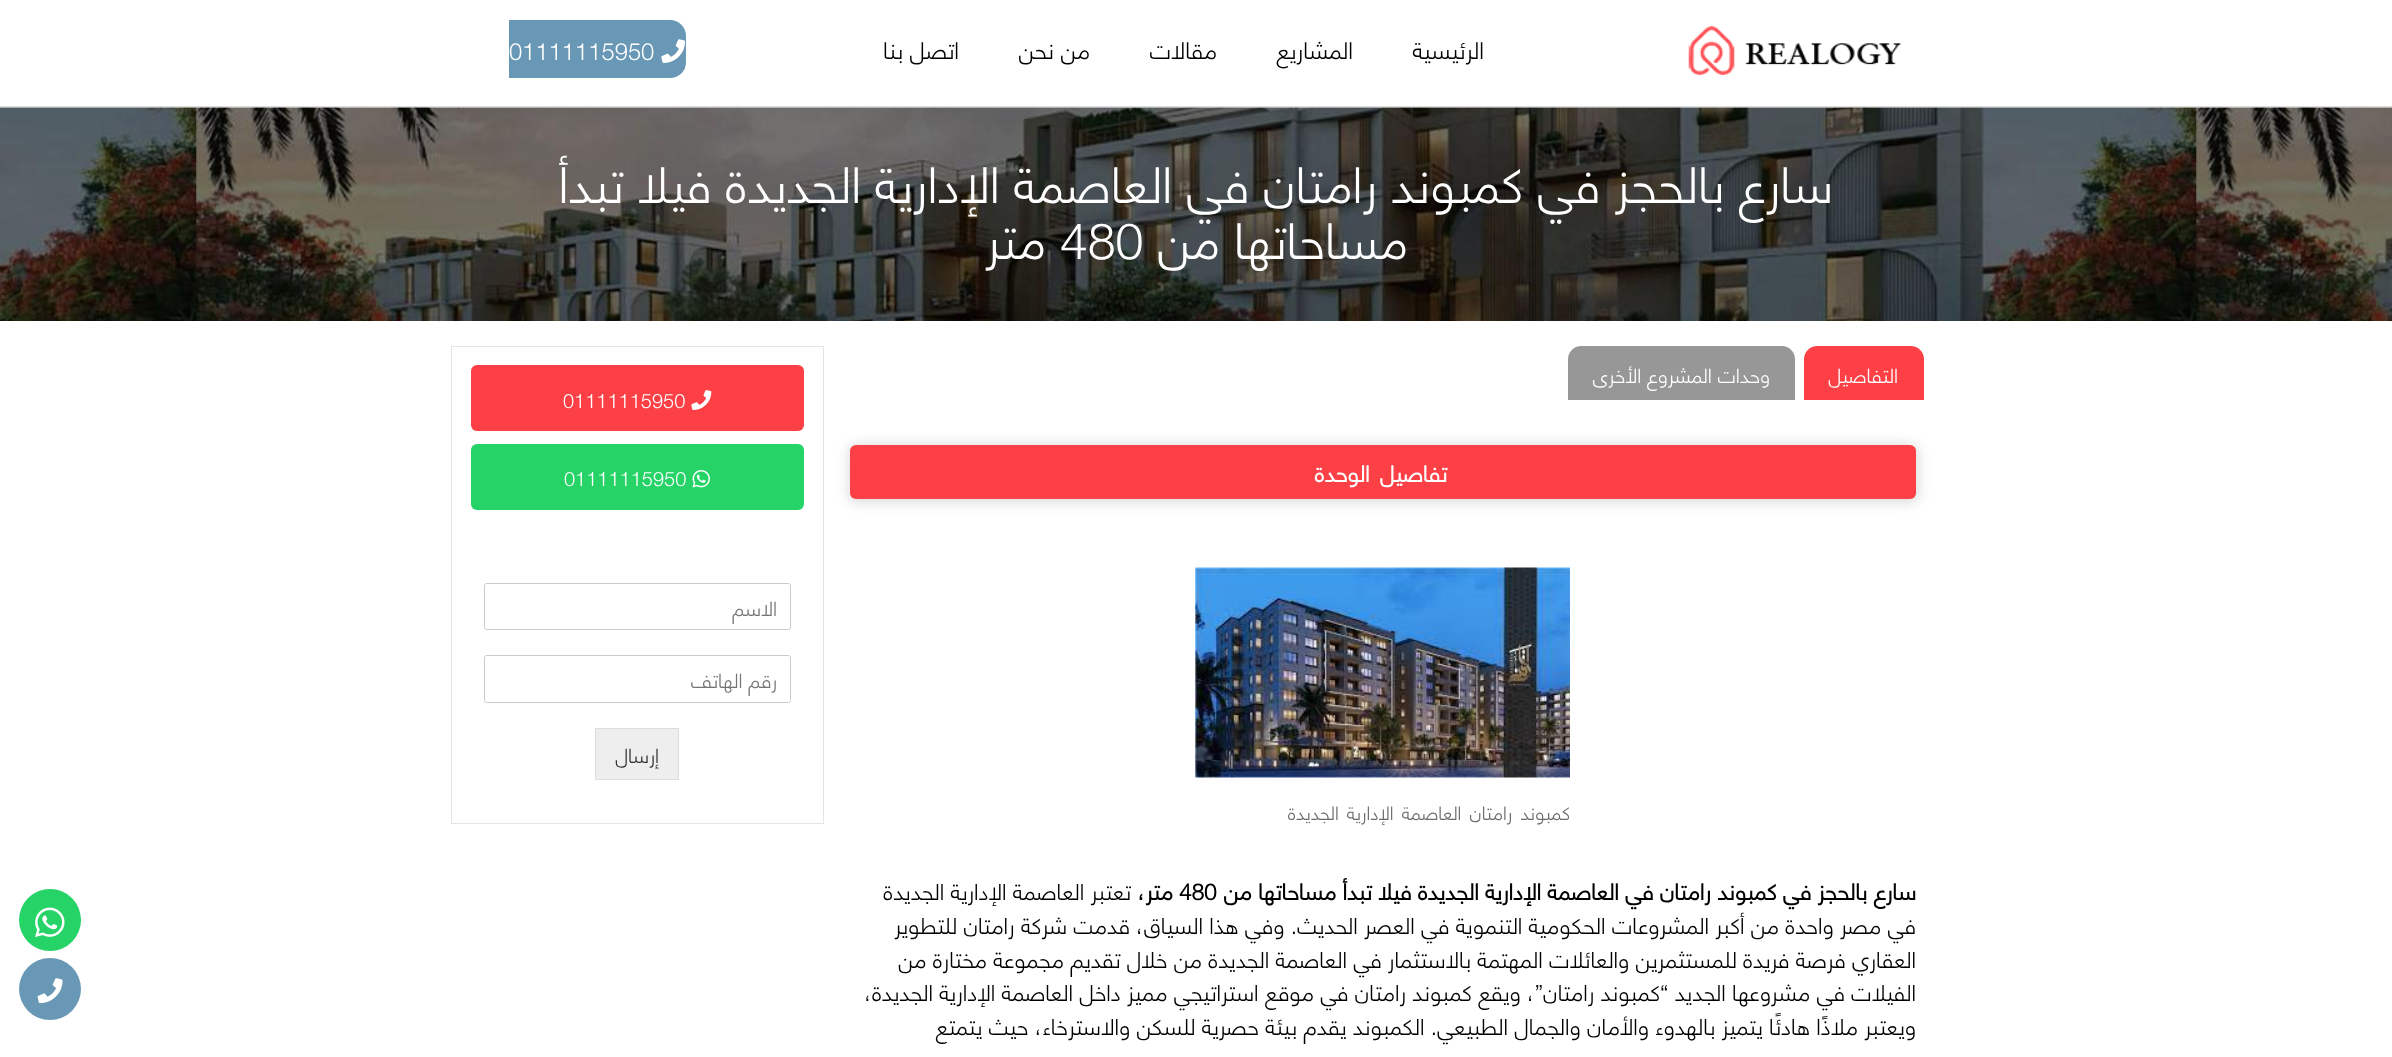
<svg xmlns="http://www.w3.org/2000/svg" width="2392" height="1057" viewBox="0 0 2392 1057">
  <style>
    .t1 { font: 300 23.5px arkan; direction: rtl; fill: #000; }
    .t2 { font: 300 23.75px arkan; fill: #fff; }
    .t3 { font: 300 50px arkan; direction: rtl; fill: #fff; }
    .t4 { font: 300 50px arkan; fill: #fff; }
    .t5 { font: 300 20px arkan; direction: rtl; fill: #fff; }
    .t6 { font: bold 22.5px arkan; letter-spacing: -0.35px; direction: rtl; fill: #fff; }
    .t7 { font: 300 18.75px arkan; letter-spacing: -0.35px; direction: rtl; fill: #6d6d6d; }
    .t8 { font: bold 22.5px arkan; direction: rtl; fill: #000; }
    .t9 { font: bold 22.5px arkan; fill: #000; }
    .t10 { font: 300 22.5px arkan; direction: rtl; fill: #000; }
    .t11 { font: 300 20px arkan; fill: #fff; }
    .t12 { font: 300 20px arkan; direction: rtl; fill: #757575; }
    .t13 { font: 300 20px arkan; direction: rtl; fill: #333; }
  </style>
  <rect width="100%" height="100%" fill="#fff"/>
  <rect x="0" y="106" width="2392" height="1" fill="#ddd"/>
  <image x="1688" y="26" width="214" height="49" href="images/1.png"/>
  <text x="1484" y="59" class="t1">الرئيسية</text>
  <text x="1353" y="59" class="t1">المشاريع</text>
  <text x="1217" y="59" class="t1">مقالات</text>
  <text x="1090" y="59" class="t1">من نحن</text>
  <text x="959" y="59" class="t1">اتصل بنا</text>
  <rect x="684" y="67" width="1" height="2" fill="#6998b6"/>
  <rect x="509" y="20" width="145" height="58" fill="#6998b6"/>
  <path d="M654 20H670C679 20 686 27 686 36V62C686 71 679 78 670 78H654Z" fill="#6998b6"/>
  <image x="661" y="39" width="24" height="24" href="images/2.png"/>
  <text x="509" y="60" class="t2">01111115950</text>
  <image x="0" y="107" width="2392" height="214" href="images/3.png"/>
  <text x="1833" y="203" class="t3">سارع بالحجز في كمبوند رامتان في العاصمة الإدارية الجديدة فيلا تبدأ</text>
  <text x="1408" y="259" class="t3">مساحاتها من</text>
  <text x="1060" y="259" class="t4">480</text>
  <text x="1046" y="259" class="t3">متر</text>
  <path d="M1817 346H1911C1918 346 1924 352 1924 359V400H1804V359C1804 352 1810 346 1817 346Z" fill="#fc4046"/>
  <text x="1898" y="383" class="t5">التفاصيل</text>
  <path d="M1581 346H1782C1789 346 1795 352 1795 359V400H1568V359C1568 352 1574 346 1581 346Z" fill="#979797"/>
  <text x="1770" y="383" class="t5">وحدات المشروع الأخرى</text>
  <rect x="848" y="444" width="1071" height="59" rx="9" fill="#ddd" filter="blur(6px)"/>
  <rect x="850" y="445" width="1066" height="54" rx="6" fill="#fc4046"/>
  <text x="1447" y="482" word-spacing="4" class="t6">تفاصيل الوحدة</text>
  <image x="1195" y="567" width="375" height="211" href="images/4.png"/>
  <text x="1570" y="820" word-spacing="3" class="t7">كمبوند رامتان العاصمة الإدارية الجديدة</text>
  <text x="1916" y="900" class="t8">سارع بالحجز في كمبوند رامتان في العاصمة الإدارية الجديدة فيلا تبدأ مساحاتها من</text>
  <text x="1179" y="900" class="t9">480</text>
  <text x="1173" y="900" class="t8">متر،</text>
  <text x="1131" y="900" class="t10">تعتبر العاصمة الإدارية الجديدة</text>
  <text x="1916" y="934" class="t10">في مصر واحدة من أكبر المشروعات الحكومية التنموية في العصر الحديث. وفي هذا السياق، قدمت شركة رامتان للتطوير</text>
  <text x="1916" y="968" class="t10">العقاري فرصة فريدة للمستثمرين والعائلات المهتمة بالاستثمار في العاصمة الجديدة من خلال تقديم مجموعة مختارة من</text>
  <text x="1916" y="1001" class="t10">الفيلات في مشروعها الجديد “كمبوند رامتان”، ويقع كمبوند رامتان في موقع استراتيجي مميز داخل العاصمة الإدارية الجديدة،</text>
  <text x="1916" y="1035" class="t10">ويعتبر ملاذًا هادئًا يتميز بالهدوء والأمان والجمال الطبيعي. الكمبوند يقدم بيئة حصرية للسكن والاسترخاء، حيث يتمتع</text>
  <rect x="451.5" y="346.5" width="372" height="477" fill="none" stroke="#e6e5e5"/>
  <rect x="471" y="365" width="333" height="66" rx="6" fill="#fc4046"/>
  <image x="691" y="390" width="21" height="20" href="images/5.png"/>
  <text x="563" y="408" class="t11">01111115950</text>
  <rect x="471" y="444" width="333" height="66" rx="6" fill="#25d366"/>
  <image x="692" y="470" width="18" height="18" href="images/6.png"/>
  <text x="564" y="486" class="t11">01111115950</text>
  <rect x="484.5" y="583.5" width="306" height="46" rx="2" fill="none" stroke="#ccc"/>
  <text x="777" y="616" class="t12">الاسم</text>
  <rect x="484.5" y="655.5" width="306" height="47" rx="2" fill="none" stroke="#ccc"/>
  <text x="777" y="688" class="t12">رقم الهاتف</text>
  <rect x="595.5" y="728.5" width="83" height="51" fill="#eee" stroke="#ddd"/>
  <text x="659" y="763" class="t13">إرسال</text>
  <circle cx="50" cy="920" r="31" fill="#25d366"/>
  <image x="35" y="907" width="30" height="30" href="images/7.png"/>
  <circle cx="50" cy="989" r="31" fill="#6998b6"/>
  <image x="37" y="978" width="26" height="26" href="images/8.png"/>
</svg>
